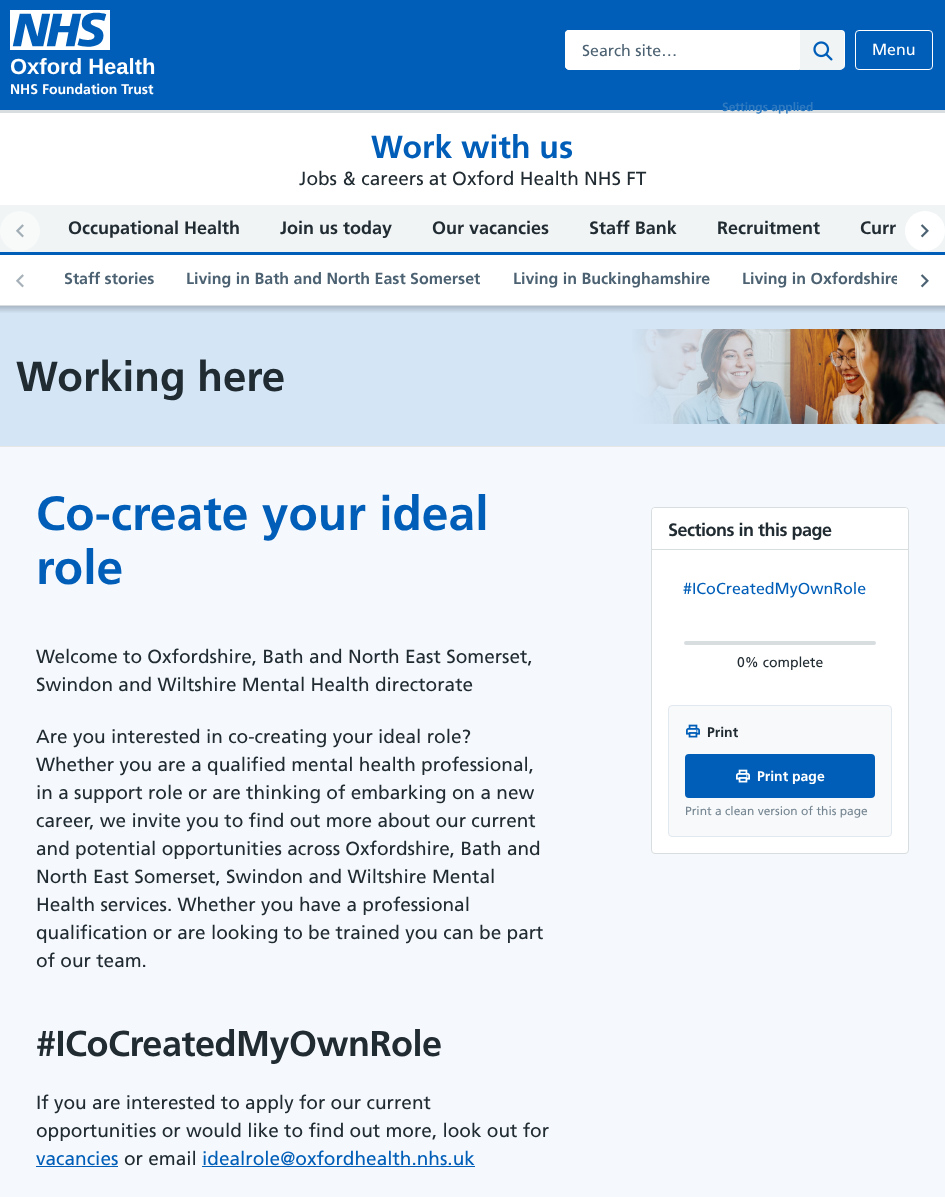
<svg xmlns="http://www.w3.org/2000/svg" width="945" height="1197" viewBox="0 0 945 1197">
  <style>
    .t1 { font: 16px Frutiger; fill: #4c6272; }
    .t2 { font: 16px Frutiger; fill: #fff; }
    .t3 { font: bold 22px Liberation Sans; fill: #fff; }
    .t4 { font: bold 14px Frutiger; fill: #fff; }
    .t5 { font: bold 48px Frutiger; fill: #005eb8; }
    .t6 { font: 19px Frutiger; fill: #212b32; }
    .t7 { font: bold 36px Frutiger; letter-spacing: -0.5px; fill: #212b32; }
    .t8 { font: 19px Frutiger; fill: #005eb8; }
    .t9 { font: bold 12px Frutiger; fill: #307ac0; }
    .t10 { font: 16px Frutiger; fill: #005eb8; }
    .t11 { font: 14px Frutiger; fill: #212b32; }
    .t12 { font: bold 14px Frutiger; fill: #212b32; }
    .t13 { font: 12px Frutiger; fill: #768692; }
    .t14 { font: bold 18px Frutiger; letter-spacing: -0.5px; fill: #212b32; }
    .t15 { font: bold 32px Frutiger; fill: #005eb8; }
    .t16 { font: bold 18px Frutiger; fill: #212b32; }
    .t17 { font: bold 16px Frutiger; fill: #4c6272; }
    .t18 { font: bold 42px Frutiger; fill: #212b32; }
  </style>
  <defs>
    <clipPath id="clip1"><rect x="48" y="255" width="849" height="58"/></clipPath>
    <linearGradient id="g1" gradientUnits="userSpaceOnUse" x1="473" y1="306" x2="473" y2="316"><stop offset="0" stop-color="#aab8c5"/><stop offset="0.75" stop-color="#d4e6f6"/></linearGradient>
    <linearGradient id="g2" gradientUnits="userSpaceOnUse" x1="575" y1="376" x2="945" y2="376"><stop offset="0" stop-color="#d4e6f6"/><stop offset="0.15" stop-color="#d4e6f6"/><stop offset="0.75" stop-color="#d4e6f6" stop-opacity="0"/></linearGradient>
  </defs>
  <rect width="100%" height="100%" fill="#f5f9fd"/>
  <rect x="0" y="0" width="945" height="110" fill="#005eb8"/>
  <rect x="565" y="30" width="280" height="39" rx="4" fill="#fff"/>
  <path d="M569 30.5H799.5V69.5H569C567 69.5 565.5 68 565.5 66V34C565.5 32 567 30.5 569 30.5Z" fill="#fff" stroke="#fff"/>
  <text x="582" y="56" class="t1">Search site…</text>
  <path d="M800 30H840C842 30 844 32 844 34V66C844 68 842 70 840 70H800Z" fill="#f0f4f5"/>
  <image x="813" y="41" width="20" height="20" href="images/1.png"/>
  <rect x="855.5" y="30.5" width="77" height="39" rx="3.5" fill="none" stroke="#fff"/>
  <text x="872" y="55" class="t2">Menu</text>
  <image x="10" y="10" width="100" height="40" href="images/2.png"/>
  <text x="10" y="74" class="t3">Oxford Health</text>
  <text x="10" y="94" class="t4">NHS Foundation Trust</text>
  <text x="36" y="530" class="t5">Co-create your ideal</text>
  <text x="36" y="584" class="t5">role</text>
  <text x="36" y="663" class="t6">Welcome to Oxfordshire, Bath and North East Somerset,</text>
  <text x="36" y="691" class="t6">Swindon and Wiltshire Mental Health directorate</text>
  <text x="36" y="743" class="t6">Are you interested in co-creating your ideal role?</text>
  <text x="36" y="771" class="t6">Whether you are a qualified mental health professional,</text>
  <text x="36" y="799" class="t6">in a support role or are thinking of embarking on a new</text>
  <text x="36" y="827" class="t6">career, we invite you to find out more about our current</text>
  <text x="36" y="855" class="t6">and potential opportunities across Oxfordshire, Bath and</text>
  <text x="36" y="883" class="t6">North East Somerset, Swindon and Wiltshire Mental</text>
  <text x="36" y="911" class="t6">Health services. Whether you have a professional</text>
  <text x="36" y="939" class="t6">qualification or are looking to be trained you can be part</text>
  <text x="36" y="967" class="t6">of our team.</text>
  <text x="36" y="1056" class="t7">#ICoCreatedMyOwnRole</text>
  <text x="36" y="1109" class="t6">If you are interested to apply for our current</text>
  <text x="36" y="1137" class="t6">opportunities or would like to find out more, look out for</text>
  <text x="36" y="1165" class="t8">vacancies</text>
  <rect x="36" y="1166" width="82" height="1" fill="#005eb8"/>
  <text x="124" y="1165" class="t6">or email</text>
  <text x="202" y="1165" class="t8">idealrole@oxfordhealth.nhs.uk</text>
  <rect x="202" y="1166" width="273" height="1" fill="#005eb8"/>
  <rect x="651.5" y="507.5" width="257" height="346" rx="3.5" fill="#fff" stroke="#d8dde0"/>
  <rect x="0" y="110" width="945" height="3" fill="#d8dde0"/>
  <rect x="0" y="113" width="945" height="92" fill="#fff"/>
  <text x="722" y="111" class="t9">Settings applied</text>
  <text x="683" y="594" class="t10">#ICoCreatedMyOwnRole</text>
  <rect x="684" y="641" width="192" height="4" rx="2" fill="#d8dde0"/>
  <text x="737" y="667" class="t11">0% complete</text>
  <rect x="668.5" y="705.5" width="223" height="131" rx="3.5" fill="#f7f9fa" stroke="#e2e8f0"/>
  <image x="686" y="724" width="14" height="14" href="images/3.png"/>
  <text x="707" y="737" class="t12">Print</text>
  <rect x="686" y="755" width="188" height="42" rx="3" fill="#005eb8" stroke="#005eb8" stroke-width="2"/>
  <image x="736" y="769" width="14" height="14" href="images/4.png"/>
  <text x="757" y="781" class="t4">Print page</text>
  <text x="685" y="815" class="t13">Print a clean version of this page</text>
  <path d="M655 508H905C906.5 508 908 509.5 908 511V550H652V511C652 509.5 653.5 508 655 508Z" fill="#fff"/>
  <rect x="652" y="549" width="256" height="1" fill="#d8dde0"/>
  <text x="668" y="536" class="t14">Sections in this page</text>
  <rect x="0" y="255" width="945" height="50" fill="#fff"/>
  <rect x="0" y="446" width="945" height="1" fill="#e6e6e6"/>
  <text x="371" y="158" class="t15">Work with us</text>
  <text x="299" y="185" class="t6">Jobs &amp; careers at Oxford Health NHS FT</text>
  <rect x="0" y="305" width="945" height="1" fill="#d8dde0"/>
  <rect x="0" y="205" width="945" height="47" fill="#f0f4f5"/>
  <rect x="0" y="252" width="945" height="3" fill="#005eb8"/>
  <circle cx="20" cy="231" r="20" fill="#f8fafa"/>
  <image x="16" y="224" width="8" height="14" href="images/5.png"/>
  <text x="68" y="234" class="t16">Occupational Health</text>
  <text x="280" y="234" class="t16">Join us today</text>
  <text x="432" y="234" class="t16">Our vacancies</text>
  <text x="589" y="234" class="t16">Staff Bank</text>
  <text x="717" y="234" class="t16">Recruitment</text>
  <text x="860" y="234" class="t16">Curr</text>
  <circle cx="925" cy="231" r="20" fill="#fff"/>
  <image x="920" y="224" width="9" height="14" href="images/6.png"/>
  <image x="16" y="274" width="8" height="14" href="images/7.png"/>
  <text x="64" y="284" class="t17">Staff stories</text>
  <text x="186" y="284" class="t17">Living in Bath and North East Somerset</text>
  <text x="513" y="284" class="t17">Living in Buckinghamshire</text>
  <g clip-path="url(#clip1)">
    <text x="742" y="284" class="t17">Living in Oxfordshire</text>
  </g>
  <image x="920" y="274" width="9" height="14" href="images/6.png"/>
  <rect x="0" y="316" width="945" height="130" fill="#d4e6f6"/>
  <image x="632" y="329" width="313" height="95" href="images/8.png"/>
  <rect x="0" y="306" width="945" height="10" fill="url(#g1)"/>
  <text x="16" y="391" class="t18">Working here</text>
  <rect x="632" y="329" width="216" height="95" fill="url(#g2)"/>
</svg>
